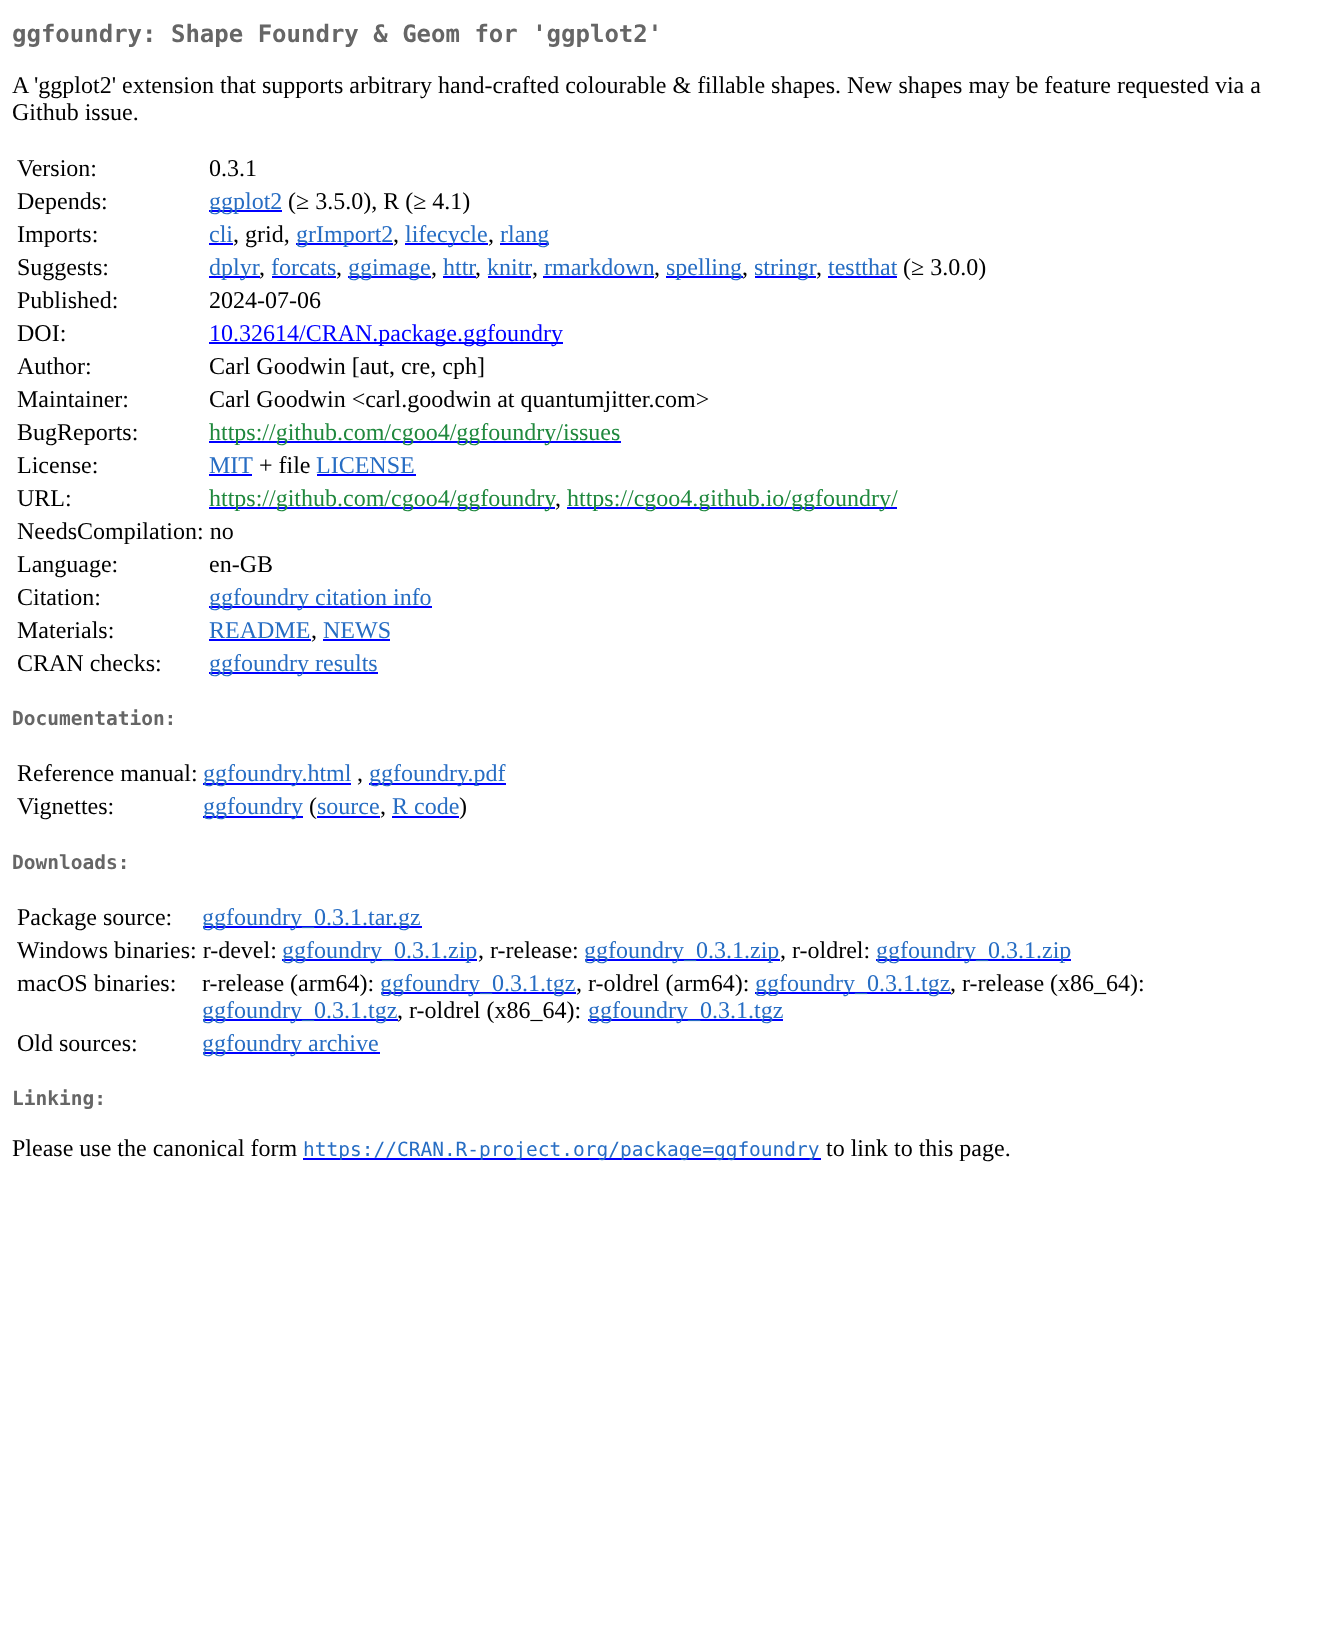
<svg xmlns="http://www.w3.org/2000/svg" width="1339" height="1642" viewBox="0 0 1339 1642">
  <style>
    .t1 { font: bold 24px DejaVu Sans Mono; fill: #666; }
    .t2 { font: 24px Liberation Serif; fill: #000; }
    .t3 { font: 24px Liberation Serif; fill: #276dc3; }
    .t4 { font: 24px Liberation Serif; fill: #00f; }
    .t5 { font: 24px Liberation Serif; fill: #1f883d; }
    .t6 { font: bold 19.5px DejaVu Sans Mono; fill: #666; }
    .t7 { font: 19.5px DejaVu Sans Mono; fill: #276dc3; }
  </style>
  <rect width="100%" height="100%" fill="#fff"/>
  <text x="12" y="42" class="t1">ggfoundry: Shape Foundry &amp; Geom for 'ggplot2'</text>
  <text x="12" y="93" class="t2">A 'ggplot2' extension that supports arbitrary hand-crafted colourable &amp; fillable shapes. New shapes may be feature requested via a</text>
  <text x="12" y="120" class="t2">Github issue.</text>
  <text x="17" y="176" class="t2">Version:</text>
  <text x="209" y="176" class="t2">0.3.1</text>
  <text x="17" y="209" class="t2">Depends:</text>
  <rect x="209" y="210" width="73" height="2" fill="#00f"/>
  <text x="209" y="209" class="t3">ggplot2</text>
  <text x="288" y="209" class="t2">(≥ 3.5.0), R (≥ 4.1)</text>
  <text x="17" y="242" class="t2">Imports:</text>
  <text x="209" y="242" class="t3">cli</text>
  <rect x="209" y="243" width="24" height="2" fill="#00f"/>
  <text x="233" y="242" class="t2">, grid,</text>
  <rect x="296" y="243" width="97" height="2" fill="#00f"/>
  <text x="296" y="242" class="t3">grImport2</text>
  <text x="393" y="242" class="t2">,</text>
  <rect x="405" y="243" width="83" height="2" fill="#00f"/>
  <text x="405" y="242" class="t3">lifecycle</text>
  <text x="488" y="242" class="t2">,</text>
  <rect x="500" y="243" width="49" height="2" fill="#00f"/>
  <text x="500" y="242" class="t3">rlang</text>
  <text x="17" y="275" class="t2">Suggests:</text>
  <rect x="209" y="276" width="51" height="2" fill="#00f"/>
  <text x="209" y="275" class="t3">dplyr</text>
  <text x="259" y="275" class="t2">,</text>
  <text x="271" y="275" class="t3">forcats</text>
  <rect x="272" y="276" width="64" height="2" fill="#00f"/>
  <text x="336" y="275" class="t2">,</text>
  <rect x="348" y="276" width="83" height="2" fill="#00f"/>
  <text x="348" y="275" class="t3">ggimage</text>
  <text x="431" y="275" class="t2">,</text>
  <text x="443" y="275" class="t3">httr</text>
  <rect x="443" y="276" width="33" height="2" fill="#00f"/>
  <text x="475" y="275" class="t2">,</text>
  <text x="487" y="275" class="t3">knitr</text>
  <rect x="488" y="276" width="43" height="2" fill="#00f"/>
  <text x="532" y="275" class="t2">,</text>
  <text x="544" y="275" class="t3">rmarkdown</text>
  <rect x="543" y="276" width="111" height="2" fill="#00f"/>
  <text x="654" y="275" class="t2">,</text>
  <rect x="666" y="276" width="77" height="2" fill="#00f"/>
  <text x="666" y="275" class="t3">spelling</text>
  <text x="742" y="275" class="t2">,</text>
  <rect x="755" y="276" width="61" height="2" fill="#00f"/>
  <text x="754" y="275" class="t3">stringr</text>
  <text x="816" y="275" class="t2">,</text>
  <text x="828" y="275" class="t3">testthat</text>
  <rect x="828" y="276" width="69" height="2" fill="#00f"/>
  <text x="903" y="275" class="t2">(≥ 3.0.0)</text>
  <text x="17" y="308" class="t2">Published:</text>
  <text x="209" y="308" class="t2">2024-07-06</text>
  <text x="17" y="341" class="t2">DOI:</text>
  <rect x="209" y="342" width="354" height="2" fill="#00f"/>
  <text x="209" y="341" class="t4">10.32614/CRAN.package.ggfoundry</text>
  <text x="17" y="374" class="t2">Author:</text>
  <text x="209" y="374" class="t2">Carl Goodwin [aut, cre, cph]</text>
  <text x="17" y="407" class="t2">Maintainer:</text>
  <text x="209" y="407" class="t2">Carl Goodwin &lt;carl.goodwin at quantumjitter.com&gt;</text>
  <text x="17" y="440" class="t2">BugReports:</text>
  <rect x="209" y="441" width="412" height="2" fill="#00f"/>
  <text x="209" y="440" class="t5">https://github.com/cgoo4/ggfoundry/issues</text>
  <text x="17" y="473" class="t2">License:</text>
  <text x="209" y="473" class="t3">MIT</text>
  <rect x="209" y="474" width="43" height="2" fill="#00f"/>
  <text x="259" y="473" class="t2">+ file</text>
  <text x="316" y="473" class="t3">LICENSE</text>
  <rect x="317" y="474" width="99" height="2" fill="#00f"/>
  <text x="17" y="506" class="t2">URL:</text>
  <rect x="209" y="507" width="346" height="2" fill="#00f"/>
  <text x="209" y="506" class="t5">https://github.com/cgoo4/ggfoundry</text>
  <text x="555" y="506" class="t2">,</text>
  <rect x="567" y="507" width="330" height="2" fill="#00f"/>
  <text x="567" y="506" class="t5">https://cgoo4.github.io/ggfoundry/</text>
  <text x="17" y="539" class="t2">NeedsCompilation: no</text>
  <text x="17" y="572" class="t2">Language:</text>
  <text x="209" y="572" class="t2">en-GB</text>
  <text x="17" y="605" class="t2">Citation:</text>
  <rect x="209" y="606" width="223" height="2" fill="#00f"/>
  <text x="209" y="605" class="t3">ggfoundry citation info</text>
  <text x="17" y="638" class="t2">Materials:</text>
  <text x="209" y="638" class="t3">README</text>
  <rect x="209" y="639" width="102" height="2" fill="#00f"/>
  <text x="311" y="638" class="t2">,</text>
  <text x="323" y="638" class="t3">NEWS</text>
  <rect x="323" y="639" width="67" height="2" fill="#00f"/>
  <text x="17" y="671" class="t2">CRAN checks:</text>
  <rect x="209" y="672" width="169" height="2" fill="#00f"/>
  <text x="209" y="671" class="t3">ggfoundry results</text>
  <text x="12" y="725" class="t6">Documentation:</text>
  <text x="17" y="781" class="t2">Reference manual:</text>
  <rect x="203" y="783" width="148" height="2" fill="#00f"/>
  <text x="203" y="781" class="t3">ggfoundry.html</text>
  <text x="357" y="781" class="t2">,</text>
  <rect x="369" y="783" width="137" height="2" fill="#00f"/>
  <text x="369" y="781" class="t3">ggfoundry.pdf</text>
  <text x="17" y="814" class="t2">Vignettes:</text>
  <rect x="203" y="816" width="100" height="2" fill="#00f"/>
  <text x="203" y="814" class="t3">ggfoundry</text>
  <text x="309" y="814" class="t2">(</text>
  <text x="317" y="814" class="t3">source</text>
  <rect x="317" y="816" width="63" height="2" fill="#00f"/>
  <text x="380" y="814" class="t2">,</text>
  <text x="392" y="814" class="t3">R code</text>
  <rect x="392" y="816" width="67" height="2" fill="#00f"/>
  <text x="459" y="814" class="t2">)</text>
  <text x="12" y="869" class="t6">Downloads:</text>
  <text x="17" y="925" class="t2">Package source:</text>
  <rect x="203" y="926" width="219" height="2" fill="#00f"/>
  <text x="202" y="925" class="t3">ggfoundry_0.3.1.tar.gz</text>
  <text x="17" y="958" class="t2">Windows binaries: r-devel:</text>
  <rect x="282" y="959" width="195" height="2" fill="#00f"/>
  <text x="282" y="958" class="t3">ggfoundry_0.3.1.zip</text>
  <text x="478" y="958" class="t2">, r-release:</text>
  <rect x="585" y="959" width="195" height="2" fill="#00f"/>
  <text x="584" y="958" class="t3">ggfoundry_0.3.1.zip</text>
  <text x="780" y="958" class="t2">, r-oldrel:</text>
  <rect x="876" y="959" width="195" height="2" fill="#00f"/>
  <text x="876" y="958" class="t3">ggfoundry_0.3.1.zip</text>
  <text x="17" y="991" class="t2">macOS binaries:</text>
  <text x="202" y="991" class="t2">r-release (arm64):</text>
  <rect x="381" y="992" width="195" height="2" fill="#00f"/>
  <text x="380" y="991" class="t3">ggfoundry_0.3.1.tgz</text>
  <text x="576" y="991" class="t2">, r-oldrel (arm64):</text>
  <rect x="755" y="992" width="196" height="2" fill="#00f"/>
  <text x="755" y="991" class="t3">ggfoundry_0.3.1.tgz</text>
  <text x="950" y="991" class="t2">, r-release (x86_64):</text>
  <rect x="203" y="1019" width="195" height="2" fill="#00f"/>
  <text x="202" y="1018" class="t3">ggfoundry_0.3.1.tgz</text>
  <rect x="384" y="996" width="14" height="1" fill="#fff"/>
  <text x="397" y="1018" class="t2">, r-oldrel (x86_64):</text>
  <rect x="588" y="1019" width="195" height="2" fill="#00f"/>
  <text x="588" y="1018" class="t3">ggfoundry_0.3.1.tgz</text>
  <rect x="759" y="996" width="16" height="1" fill="#fff"/>
  <text x="17" y="1051" class="t2">Old sources:</text>
  <rect x="203" y="1052" width="177" height="2" fill="#00f"/>
  <text x="202" y="1051" class="t3">ggfoundry archive</text>
  <text x="12" y="1105" class="t6">Linking:</text>
  <text x="12" y="1156" class="t2">Please use the canonical form</text>
  <rect x="303" y="1158" width="518" height="2" fill="#00f"/>
  <text x="303" y="1156" class="t7">https://CRAN.R-project.org/package=ggfoundry</text>
  <text x="826" y="1156" class="t2">to link to this page.</text>
</svg>
